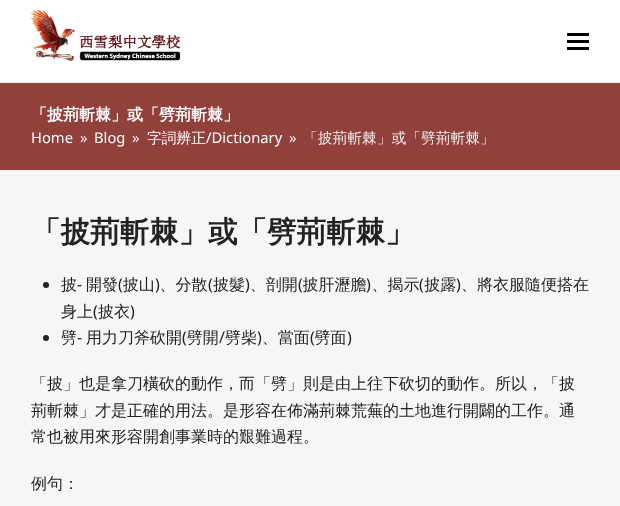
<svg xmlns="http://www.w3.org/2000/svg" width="620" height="506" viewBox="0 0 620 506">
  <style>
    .t1 { font: bold 16px WenQuanYi Zen Hei; fill: #fff; }
    .t2 { font: 14.75px Noto Sans; fill: #fff; }
    .t3 { font: 14.75px Noto Sans; fill: #eee; }
    .t4 { font: 500 14.75px WenQuanYi Zen Hei; fill: #fff; }
    .t5 { font: 500 14.75px WenQuanYi Zen Hei; fill: #eee; }
    .t6 { font: bold 29.5px WenQuanYi Zen Hei; fill: #222; }
    .t7 { font: 500 16px WenQuanYi Zen Hei; fill: #222; }
    .t8 { font: 16px Noto Sans; fill: #222; }
  </style>
  <rect width="100%" height="100%" fill="#f6f6f6"/>
  <rect x="0" y="0" width="620" height="82" fill="#fff"/>
  <image x="31" y="10" width="150" height="51" href="images/1.png"/>
  <rect x="567" y="40" width="22" height="3" fill="#000"/>
  <rect x="567" y="33" width="22" height="3" fill="#000"/>
  <rect x="567" y="47" width="22" height="3" fill="#000"/>
  <rect x="0" y="83" width="620" height="87" fill="#91403c"/>
  <rect x="0" y="82" width="620" height="1" fill="#eee"/>
  <rect x="0" y="170" width="620" height="1" fill="#eee"/>
  <text x="31" y="120" class="t1">「披荊斬棘」或「劈荊斬棘」</text>
  <text x="31" y="143" class="t2">Home</text>
  <text x="80" y="143" class="t3">»</text>
  <text x="94" y="143" class="t2">Blog</text>
  <text x="132" y="143" class="t3">»</text>
  <text x="147" y="143" class="t4">字詞辨正</text>
  <text x="206" y="143" class="t2">/Dictionary</text>
  <text x="289" y="143" class="t3">»</text>
  <text x="303" y="143" class="t5">「披荊斬棘」或「劈荊斬棘」</text>
  <text x="31" y="242" class="t6">「披荊斬棘」或「劈荊斬棘」</text>
  <text x="61" y="290" class="t7">披</text>
  <text x="86" y="290" class="t7">開發 披山 、分散</text>
  <text x="208" y="290" class="t8">(</text>
  <text x="213" y="290" class="t7">披髮 、剖開 披肝瀝膽 、揭示 披露 、將衣服隨便搭在</text>
  <circle cx="46" cy="285" r="3" fill="#222"/>
  <text x="77" y="290" class="t8">-</text>
  <text x="118" y="290" class="t8">(</text>
  <text x="155" y="290" class="t8">)</text>
  <text x="245" y="290" class="t8">)</text>
  <text x="298" y="290" class="t8">(</text>
  <text x="366" y="290" class="t8">)</text>
  <text x="419" y="290" class="t8">(</text>
  <text x="456" y="290" class="t8">)</text>
  <text x="61" y="317" class="t7">身上</text>
  <text x="93" y="317" class="t8">(</text>
  <text x="98" y="317" class="t7">披衣</text>
  <text x="130" y="317" class="t8">)</text>
  <text x="61" y="343" class="t7">劈</text>
  <text x="86" y="343" class="t7">用力刀斧砍開 劈開</text>
  <text x="225" y="343" class="t7">劈柴 、當面 劈面</text>
  <circle cx="46" cy="338" r="3" fill="#222"/>
  <text x="77" y="343" class="t8">-</text>
  <text x="182" y="343" class="t8">(</text>
  <text x="219" y="343" class="t8">/</text>
  <text x="257" y="343" class="t8">)</text>
  <text x="310" y="343" class="t8">(</text>
  <text x="347" y="343" class="t8">)</text>
  <text x="31" y="389" class="t7">「披」也是拿刀橫砍的動作，而「劈」則是由上往下砍切的動作。所以，「披</text>
  <text x="31" y="416" class="t7">荊斬棘」才是正確的用法。是形容在佈滿荊棘荒蕪的土地進行開闢的工作。通</text>
  <text x="31" y="442" class="t7">常也被用來形容開創事業時的艱難過程。</text>
  <text x="31" y="489" class="t7">例句：</text>
</svg>
